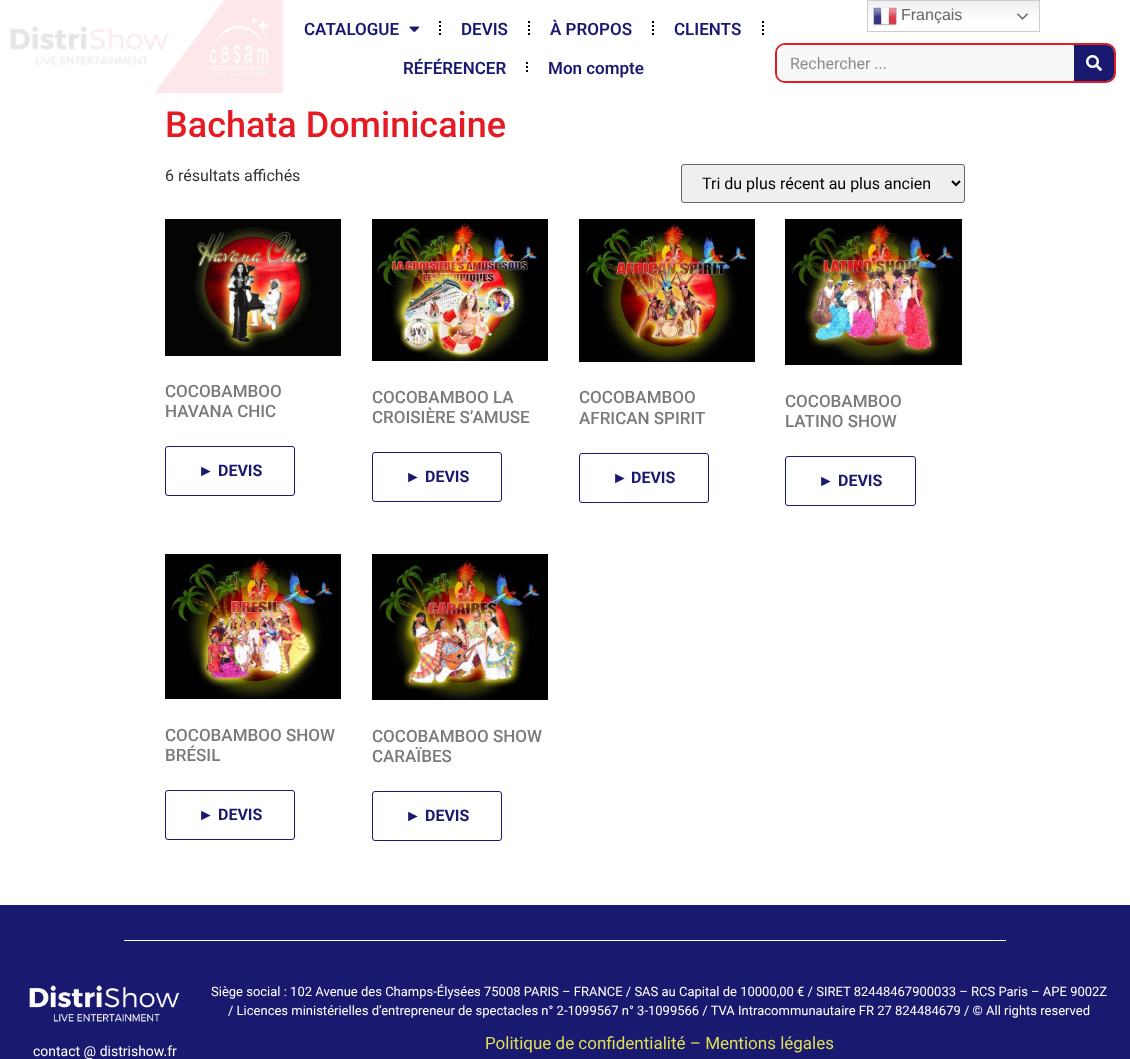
<svg xmlns="http://www.w3.org/2000/svg" width="1130" height="1059" viewBox="0 0 1130 1059">
  <style>
    .t1 { font: 16px Liberation Sans; fill: #666; }
    .t2 { font: 600 17px Roboto; fill: #191970; }
    .t3 { font: 16px Roboto; fill: #898c90; }
    .t4 { font: 500 36px Roboto; fill: #e51b23; }
    .t5 { font: 16px Roboto; fill: #333; }
    .t6 { font: 16px Roboto; fill: #000; }
    .t7 { font: 500 17px Roboto; fill: #7a7a7a; }
    .t8 { font: bold 16px Liberation Sans; fill: #191970; }
    .t9 { font: bold 16px Roboto; fill: #191970; }
    .t10 { font: 14px Roboto; fill: #fff; }
    .t11 { font: 13px Roboto; fill: #fff; }
    .t12 { font: 17px Roboto; fill: #dede57; }
  </style>
  <defs>
    <linearGradient id="g1" gradientUnits="userSpaceOnUse" x1="954" y1="0" x2="954" y2="32"><stop offset="0" stop-color="#efefef"/><stop offset="0.7" stop-color="#fff"/></linearGradient>
    <clipPath id="clip1"><rect x="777" y="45" width="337" height="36" rx="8"/></clipPath>
  </defs>
  <rect width="100%" height="100%" fill="#fff"/>
  <rect x="868" y="1" width="171" height="18" fill="url(#g1)"/>
  <rect x="776" y="44" width="339" height="38" rx="9" fill="#f1f2f3" stroke="#e51b23" stroke-width="2"/>
  <g clip-path="url(#clip1)">
    <rect x="777" y="45" width="297" height="36" rx="3" fill="#00000080" filter="blur(5px)"/>
  </g>
  <rect x="867.5" y="0.5" width="172" height="31" fill="none" stroke="#ccc"/>
  <image x="873" y="7" width="24" height="19" href="images/1.png"/>
  <text x="901" y="20" class="t1">Français</text>
  <image x="1017" y="13" width="11" height="7" href="images/2.png"/>
  <image x="10" y="0" width="273" height="93" href="images/3.png"/>
  <text x="304" y="35" class="t2">CATALOGUE</text>
  <image x="409" y="26" width="11" height="7" href="images/4.png"/>
  <path d="M440 21V36" fill="none" stroke="#000" stroke-width="2" stroke-dasharray="2 2"/>
  <text x="461" y="35" class="t2">DEVIS</text>
  <path d="M529 21V36" fill="none" stroke="#000" stroke-width="2" stroke-dasharray="2 2"/>
  <text x="550" y="35" class="t2">À PROPOS</text>
  <path d="M653 21V36" fill="none" stroke="#000" stroke-width="2" stroke-dasharray="2 2"/>
  <text x="674" y="35" class="t2">CLIENTS</text>
  <path d="M763 21V36" fill="none" stroke="#000" stroke-width="2" stroke-dasharray="2 2"/>
  <text x="403" y="74" class="t2">RÉFÉRENCER</text>
  <path d="M527 62V64M527 66V68M527 70V72" fill="none" stroke="#000" stroke-width="2"/>
  <text x="548" y="74" class="t2">Mon compte</text>
  <path d="M785 45H1071C1072.5 45 1074 46.5 1074 48V78C1074 79.5 1072.5 81 1071 81H785C780.5 81 777 77.5 777 73V53C777 48.5 780.5 45 785 45Z" fill="#f8f8f8"/>
  <text x="790" y="69" class="t3">Rechercher ...</text>
  <path d="M1074 45H1106C1110.5 45 1114 48.5 1114 53V73C1114 77.5 1110.5 81 1106 81H1074Z" fill="#191970"/>
  <image x="1086" y="55" width="16" height="16" href="images/5.png"/>
  <text x="165" y="137" class="t4">Bachata Dominicaine</text>
  <text x="165" y="181" class="t5">6 résultats affichés</text>
  <rect x="681.5" y="164.5" width="283" height="38" rx="2.5" fill="#efefef" stroke="#666"/>
  <path d="M952 181L956 185L960 181" fill="none" stroke="#000" stroke-width="2"/>
  <text x="702" y="189" class="t6">Tri du plus récent au plus ancien</text>
  <image x="165" y="219" width="176" height="137" href="images/6.png"/>
  <text x="165" y="397" class="t7">COCOBAMBOO</text>
  <text x="165" y="417" class="t7">HAVANA CHIC</text>
  <rect x="165.5" y="446.5" width="129" height="49" rx="2.5" fill="none" stroke="#191970"/>
  <text x="198" y="476" class="t8">►</text>
  <text x="218" y="476" class="t9">DEVIS</text>
  <image x="372" y="219" width="176" height="142" href="images/7.png"/>
  <text x="372" y="403" class="t7">COCOBAMBOO LA</text>
  <text x="372" y="423" class="t7">CROISIÈRE S’AMUSE</text>
  <rect x="372.5" y="452.5" width="129" height="49" rx="2.5" fill="none" stroke="#191970"/>
  <text x="405" y="482" class="t8">►</text>
  <text x="425" y="482" class="t9">DEVIS</text>
  <image x="579" y="219" width="176" height="143" href="images/8.png"/>
  <text x="579" y="403" class="t7">COCOBAMBOO</text>
  <text x="579" y="424" class="t7">AFRICAN SPIRIT</text>
  <rect x="579.5" y="453.5" width="129" height="49" rx="2.5" fill="none" stroke="#191970"/>
  <text x="612" y="483" class="t8">►</text>
  <text x="631" y="483" class="t9">DEVIS</text>
  <image x="785" y="219" width="177" height="146" href="images/9.png"/>
  <text x="785" y="407" class="t7">COCOBAMBOO</text>
  <text x="785" y="427" class="t7">LATINO SHOW</text>
  <rect x="785.5" y="456.5" width="130" height="49" rx="2.5" fill="none" stroke="#191970"/>
  <text x="818" y="486" class="t8">►</text>
  <text x="838" y="486" class="t9">DEVIS</text>
  <image x="165" y="554" width="176" height="145" href="images/10.png"/>
  <text x="165" y="741" class="t7">COCOBAMBOO SHOW</text>
  <text x="165" y="761" class="t7">BRÉSIL</text>
  <rect x="165.5" y="790.5" width="129" height="49" rx="2.5" fill="none" stroke="#191970"/>
  <text x="198" y="820" class="t8">►</text>
  <text x="218" y="820" class="t9">DEVIS</text>
  <image x="372" y="554" width="176" height="146" href="images/11.png"/>
  <text x="372" y="742" class="t7">COCOBAMBOO SHOW</text>
  <text x="372" y="762" class="t7">CARAÏBES</text>
  <rect x="372.5" y="791.5" width="129" height="49" rx="2.5" fill="none" stroke="#191970"/>
  <text x="405" y="821" class="t8">►</text>
  <text x="425" y="821" class="t9">DEVIS</text>
  <rect x="0" y="905" width="1130" height="154" fill="#191970"/>
  <rect x="124" y="940" width="882" height="1" fill="#fff"/>
  <image x="29" y="985" width="151" height="37" href="images/12.png"/>
  <text x="33" y="1056" class="t10">contact @ distrishow.fr</text>
  <text x="211" y="996" class="t11">Siège social : 102 Avenue des Champs-Élysées 75008 PARIS – FRANCE / SAS au Capital de 10000,00 € / SIRET 82448467900033 – RCS Paris – APE 9002Z</text>
  <text x="228" y="1015" class="t11">/ Licences ministérielles d’entrepreneur de spectacles n° 2-1099567 n° 3-1099566 / TVA Intracommunautaire FR 27 824484679 / © All rights reserved</text>
  <text x="485" y="1049" class="t12">Politique de confidentialité – Mentions légales</text>
</svg>
